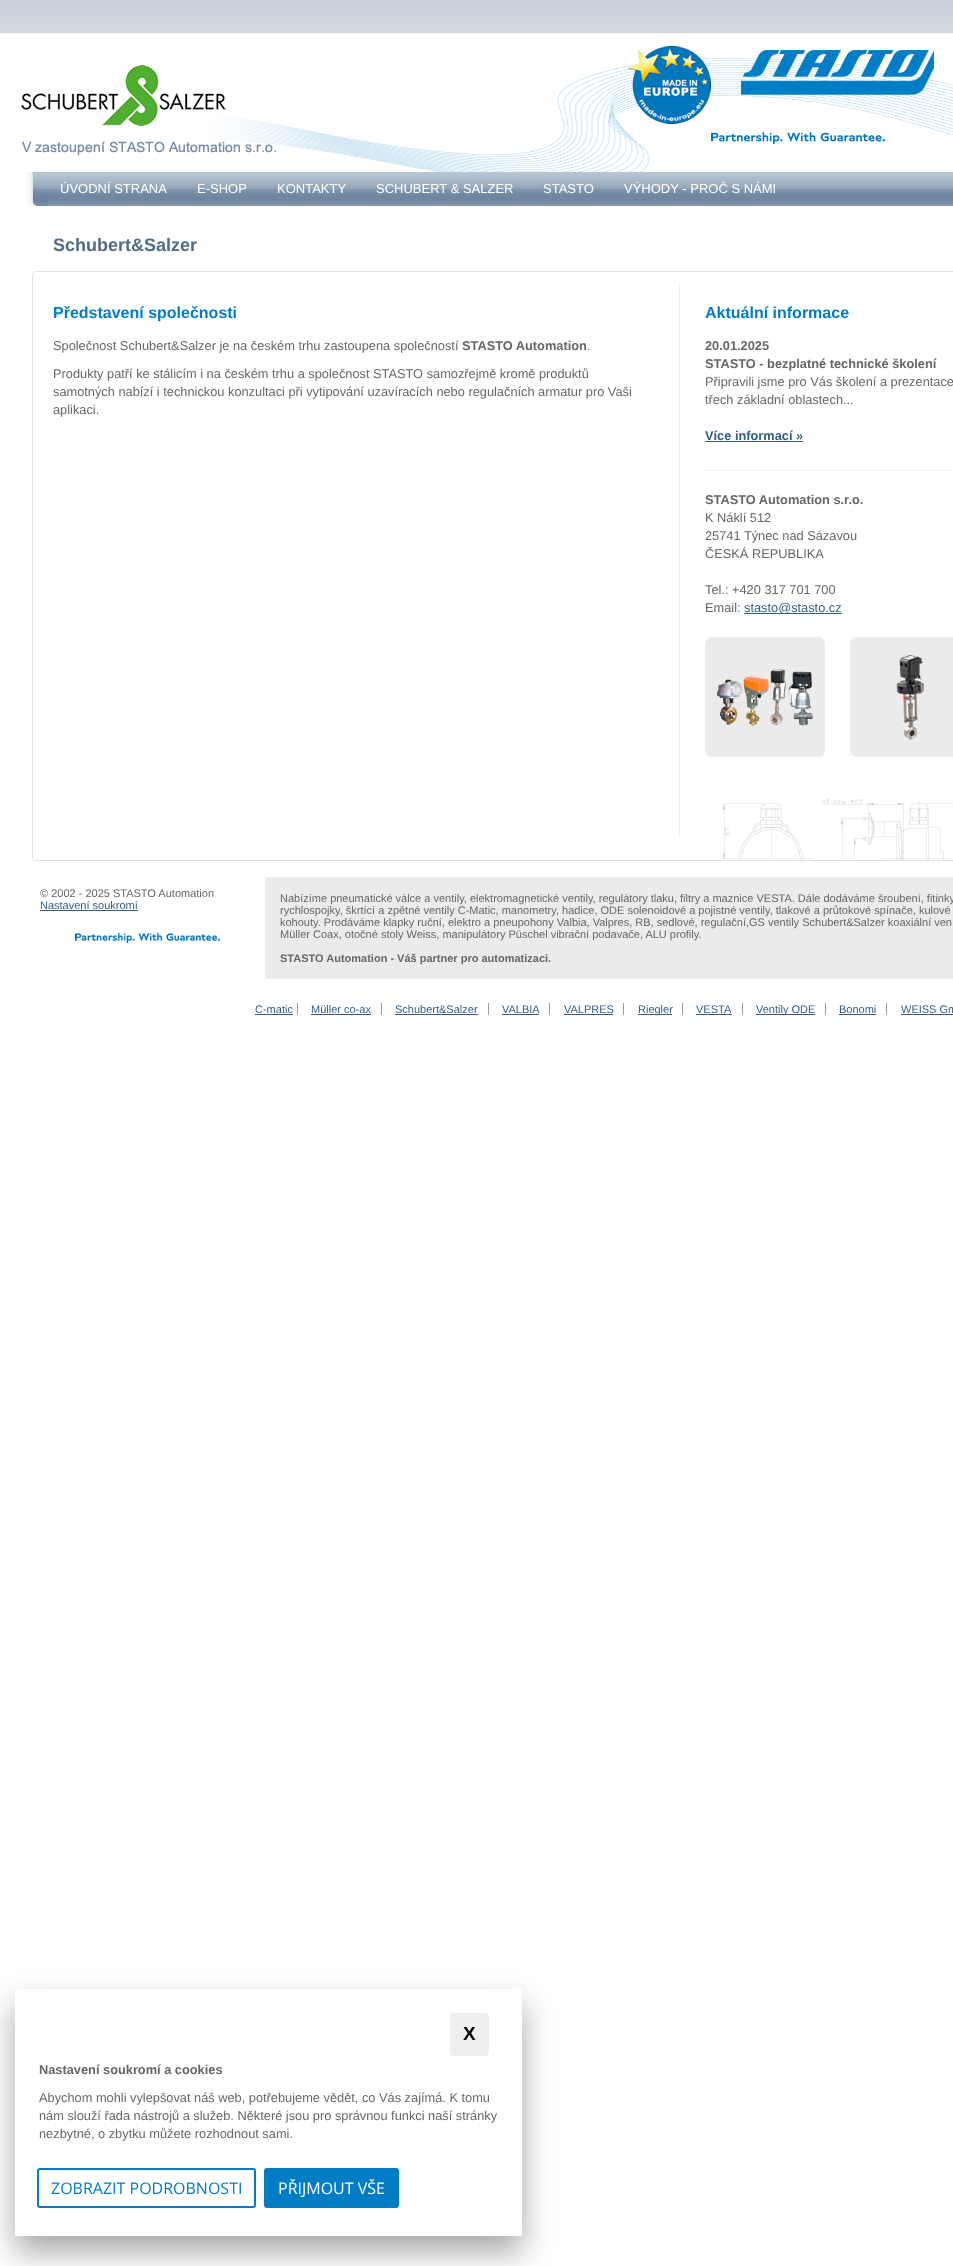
<svg xmlns="http://www.w3.org/2000/svg" width="953" height="2266" viewBox="0 0 953 2266">
  <style>
    .t1 { font: 13px Liberation Sans; fill: #fff; }
    .t2 { font: bold 18px Liberation Sans; fill: #526c85; }
    .t3 { font: bold 16px Liberation Sans; fill: #007dc5; }
    .t4 { font: 12.8px Liberation Sans; fill: #666; }
    .t5 { font: bold 12.8px Liberation Sans; fill: #666; }
    .t6 { font: bold 12.8px Liberation Sans; fill: #325e85; }
    .t7 { font: 12.8px Liberation Sans; fill: #325e85; }
    .t8 { font: 11px Liberation Sans; fill: #666; }
    .t9 { font: 11px Liberation Sans; fill: #325e85; }
    .t10 { font: bold 11px Liberation Sans; fill: #666; }
    .t11 { font: bold 19px Liberation Sans; fill: #000; }
    .t12 { font: 16px Open Sans; fill: #007dc5; }
    .t13 { font: 16px Open Sans; fill: #fff; }
  </style>
  <defs>
    <clipPath id="clip1"><path d="M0 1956H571V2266H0ZM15 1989H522V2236H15Z" clip-rule="evenodd"/></clipPath>
  </defs>
  <rect width="100%" height="100%" fill="#fff"/>
  <image x="0" y="0" width="953" height="34" href="images/1.png"/>
  <image x="0" y="32" width="953" height="140" href="images/2.png"/>
  <image x="26" y="172" width="927" height="34" href="images/3.png"/>
  <text x="60" y="193" class="t1">ÚVODNÍ STRANA</text>
  <text x="197" y="193" class="t1">E-SHOP</text>
  <text x="277" y="193" class="t1">KONTAKTY</text>
  <text x="376" y="193" class="t1">SCHUBERT &amp; SALZER</text>
  <text x="543" y="193" class="t1">STASTO</text>
  <text x="624" y="193" class="t1">VÝHODY - PROČ S NÁMI</text>
  <image x="723" y="799" width="230" height="61" href="images/4.png"/>
  <rect x="32.5" y="271.5" width="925" height="589" rx="3.5" fill="none" stroke="#e6e2d8"/>
  <text x="53" y="251" class="t2">Schubert&amp;Salzer</text>
  <text x="53" y="318" class="t3">Představení společnosti</text>
  <text x="53" y="350" class="t4">Společnost Schubert&amp;Salzer je na českém trhu zastoupena společností</text>
  <text x="462" y="350" class="t5">STASTO Automation</text>
  <text x="587" y="350" class="t4">.</text>
  <text x="53" y="378" class="t4">Produkty patří ke stálicím i na českém trhu a společnost STASTO samozřejmě kromě produktů</text>
  <text x="53" y="396" class="t4">samotných nabízí i technickou konzultaci při vytipování uzavíracích nebo regulačních armatur pro Vaši</text>
  <text x="53" y="414" class="t4">aplikaci.</text>
  <path d="M679.5 284V837" fill="none" stroke="#e6e2d8" stroke-dasharray="1 1"/>
  <text x="705" y="318" class="t3">Aktuální informace</text>
  <text x="705" y="350" class="t5">20.01.2025</text>
  <text x="705" y="368" class="t5">STASTO - bezplatné technické školení</text>
  <text x="705" y="386" class="t4">Připravili jsme pro Vás školení a prezentace</text>
  <text x="705" y="404" class="t4">třech základní oblastech...</text>
  <text x="705" y="440" class="t6">Více informací »</text>
  <rect x="705" y="441" width="98" height="1" fill="#325e85"/>
  <path d="M705 470.5H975" fill="none" stroke="#e6e2d8" stroke-dasharray="1 1"/>
  <text x="705" y="504" class="t5">STASTO Automation s.r.o.</text>
  <text x="705" y="522" class="t4">K Náklí 512</text>
  <text x="705" y="540" class="t4">25741 Týnec nad Sázavou</text>
  <text x="705" y="558" class="t4">ČESKÁ REPUBLIKA</text>
  <text x="705" y="594" class="t4">Tel.: +420 317 701 700</text>
  <text x="705" y="612" class="t4">Email:</text>
  <rect x="744" y="613" width="98" height="1" fill="#325e85"/>
  <text x="744" y="612" class="t7">stasto@stasto.cz</text>
  <image x="705" y="637" width="120" height="120" href="images/5.png"/>
  <image x="850" y="637" width="103" height="120" href="images/6.png"/>
  <image x="75" y="932" width="145" height="11" href="images/7.png"/>
  <text x="40" y="897" class="t8">© 2002 - 2025 STASTO Automation</text>
  <text x="40" y="909" class="t9">Nastavení soukromí</text>
  <rect x="40" y="910" width="98" height="1" fill="#325e85"/>
  <rect x="265" y="877" width="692" height="102" rx="4" fill="#ebebeb"/>
  <text x="280" y="902" class="t8">Nabízíme pneumatické válce a ventily, elektromagnetické ventily, regulátory tlaku, filtry a maznice VESTA. Dále dodáváme šroubení, fitinky</text>
  <text x="280" y="914" class="t8">rychlospojky, škrtící a zpětné ventily C-Matic, manometry, hadice, ODE solenoidové a pojistné ventily, tlakové a průtokové spínače, kulové</text>
  <text x="280" y="926" class="t8">kohouty. Prodáváme klapky ruční, elektro a pneupohony Valbia, Valpres, RB, sedlové, regulační,GS ventily Schubert&amp;Salzer koaxiální ven</text>
  <text x="280" y="938" class="t8">Müller Coax, otočné stoly Weiss, manipulátory Püschel vibrační podavače, ALU profily.</text>
  <text x="280" y="962" class="t10">STASTO Automation - Váš partner pro automatizaci.</text>
  <text x="255" y="1013" class="t9">C-matic</text>
  <rect x="297" y="1003" width="1" height="12" fill="#999"/>
  <rect x="255" y="1014" width="38" height="1" fill="#325e85"/>
  <text x="311" y="1013" class="t9">Müller co-ax</text>
  <rect x="381" y="1003" width="1" height="12" fill="#999"/>
  <rect x="311" y="1014" width="60" height="1" fill="#325e85"/>
  <text x="395" y="1013" class="t9">Schubert&amp;Salzer</text>
  <rect x="488" y="1003" width="1" height="12" fill="#999"/>
  <rect x="395" y="1014" width="83" height="1" fill="#325e85"/>
  <text x="502" y="1013" class="t9">VALBIA</text>
  <rect x="549" y="1003" width="1" height="12" fill="#999"/>
  <rect x="502" y="1014" width="37" height="1" fill="#325e85"/>
  <text x="564" y="1013" class="t9">VALPRES</text>
  <rect x="623" y="1003" width="1" height="12" fill="#999"/>
  <rect x="564" y="1014" width="49" height="1" fill="#325e85"/>
  <rect x="638" y="1014" width="34" height="1" fill="#325e85"/>
  <text x="638" y="1013" class="t9">Riegler</text>
  <rect x="682" y="1003" width="1" height="12" fill="#999"/>
  <text x="696" y="1013" class="t9">VESTA</text>
  <rect x="742" y="1003" width="1" height="12" fill="#999"/>
  <rect x="696" y="1014" width="36" height="1" fill="#325e85"/>
  <rect x="756" y="1014" width="59" height="1" fill="#325e85"/>
  <text x="756" y="1013" class="t9">Ventily ODE</text>
  <rect x="825" y="1003" width="1" height="12" fill="#999"/>
  <text x="839" y="1013" class="t9">Bonomi</text>
  <rect x="886" y="1003" width="1" height="12" fill="#999"/>
  <rect x="839" y="1014" width="37" height="1" fill="#325e85"/>
  <text x="901" y="1013" class="t9">WEISS Gm</text>
  <rect x="901" y="1014" width="52" height="1" fill="#325e85"/>
  <g clip-path="url(#clip1)">
    <rect x="15" y="2005" width="507" height="247" fill="#00000059" filter="blur(16px)"/>
  </g>
  <rect x="450" y="2013" width="39" height="43" rx="4" fill="#efefef"/>
  <text x="463" y="2040" class="t11">X</text>
  <text x="39" y="2074" class="t5">Nastavení soukromí a cookies</text>
  <text x="39" y="2102" class="t4">Abychom mohli vylepšovat náš web, potřebujeme vědět, co Vás zajímá. K tomu</text>
  <text x="39" y="2120" class="t4">nám slouží řada nástrojů a služeb. Některé jsou pro správnou funkci naší stránky</text>
  <text x="39" y="2138" class="t4">nezbytné, o zbytku můžete rozhodnout sami.</text>
  <rect x="38" y="2169" width="217" height="38" rx="2" fill="none" stroke="#007dc5" stroke-width="2"/>
  <text x="51" y="2194" class="t12">ZOBRAZIT PODROBNOSTI</text>
  <rect x="265" y="2169" width="133" height="38" rx="2" fill="#007dc5" stroke="#007dc5" stroke-width="2"/>
  <text x="278" y="2194" class="t13">PŘIJMOUT VŠE</text>
</svg>
